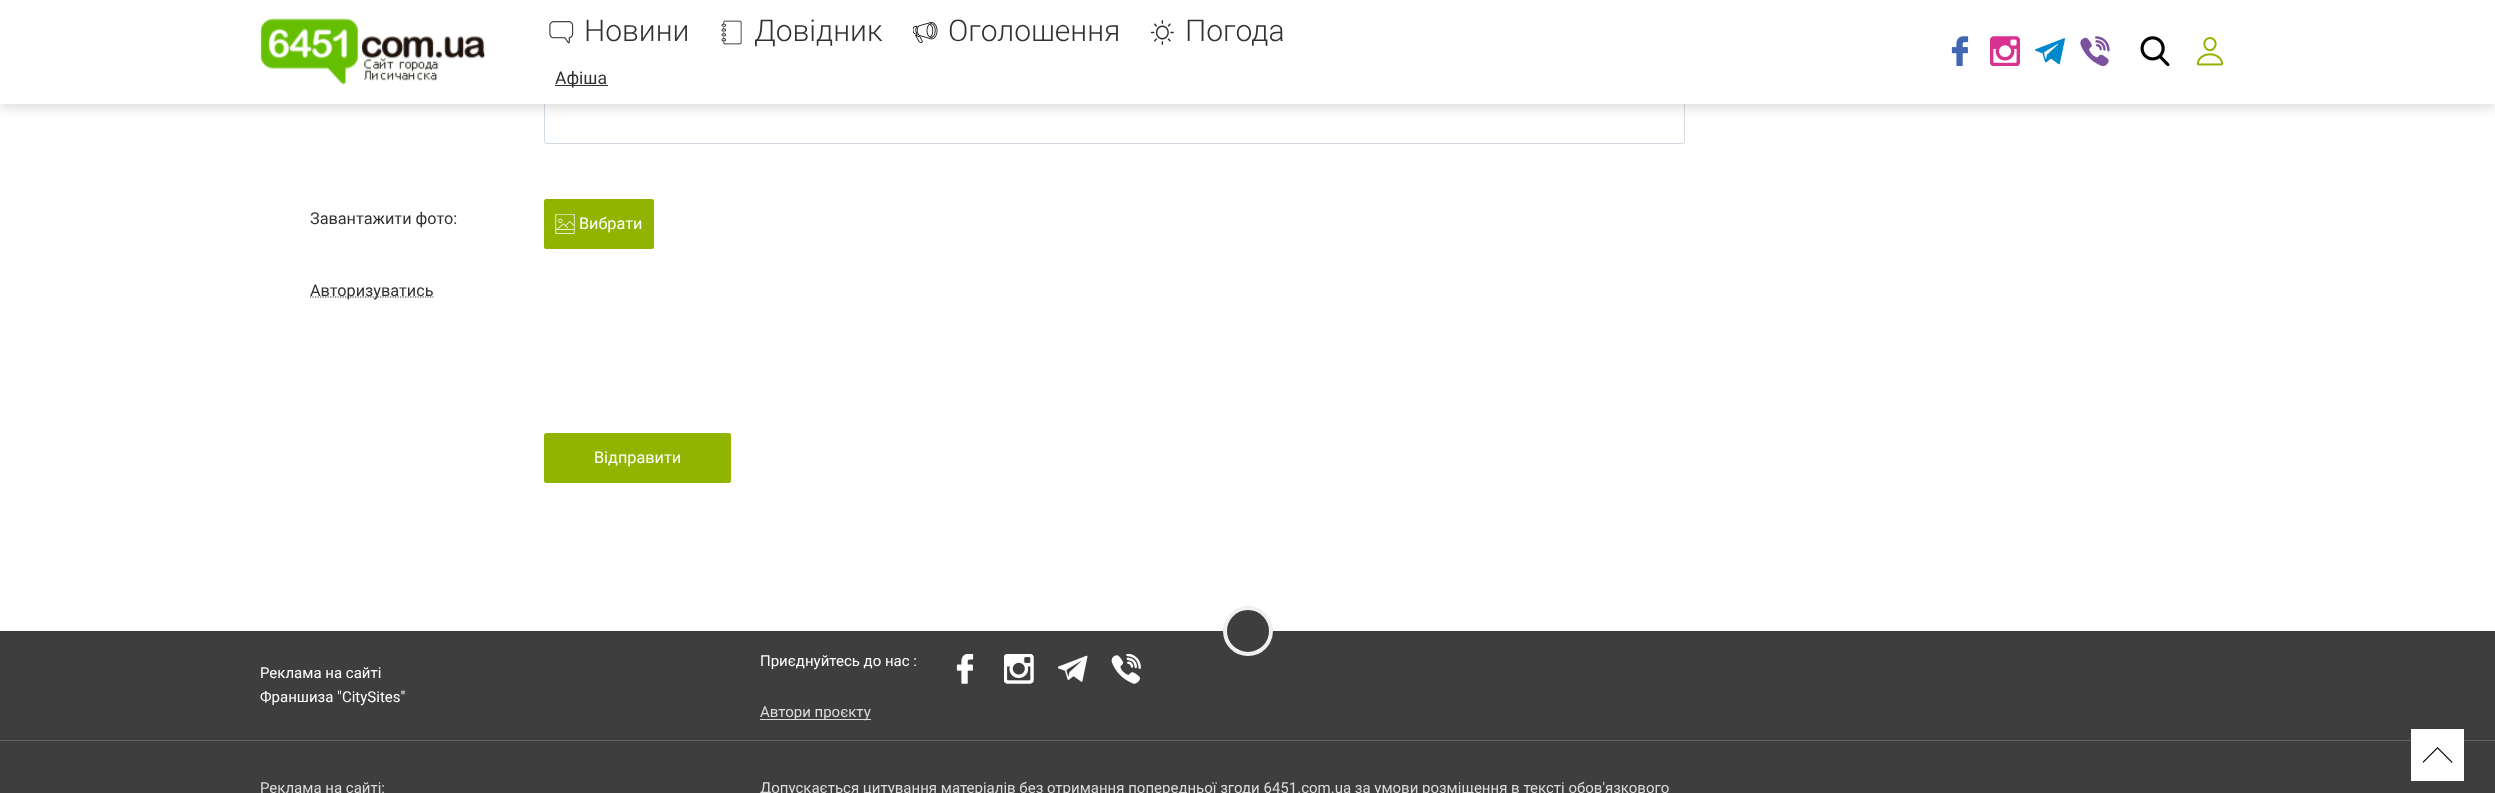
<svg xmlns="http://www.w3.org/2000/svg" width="2495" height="793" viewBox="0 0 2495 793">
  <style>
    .t1 { font: 300 30px Roboto; fill: #323232; }
    .t2 { font: 17.5px Roboto; fill: #323232; }
    .t3 { font: 16.25px Roboto; fill: #323232; }
    .t4 { font: 16.25px Roboto; fill: #fff; }
    .t5 { font: 15px Roboto; fill: #fff; }
    .t6 { font: 15px Roboto; fill: #dcdcdc; }
  </style>
  <rect width="100%" height="100%" fill="#fff"/>
  <rect x="544.5" y="19.5" width="1140" height="124" rx="2" fill="none" stroke="#d2dbe3"/>
  <rect x="0" y="4" width="2495" height="104" fill="#4e4e4e33" filter="blur(6px)"/>
  <rect x="0" y="0" width="2495" height="104" fill="#fff"/>
  <image x="260" y="18" width="226" height="67" href="images/1.png"/>
  <image x="549" y="21" width="25" height="23" href="images/2.png"/>
  <text x="584" y="41" class="t1">Новини</text>
  <image x="721" y="20" width="21" height="25" href="images/3.png"/>
  <text x="754" y="41" class="t1">Довідник</text>
  <image x="913" y="22" width="25" height="21" href="images/4.png"/>
  <text x="948" y="41" class="t1">Оголошення</text>
  <image x="1150" y="20" width="24" height="25" href="images/5.png"/>
  <text x="1185" y="41" class="t1">Погода</text>
  <rect x="555" y="85" width="53" height="1" fill="#323232"/>
  <text x="555" y="84" class="t2">Афіша</text>
  <image x="1951" y="36" width="18" height="30" href="images/6.png"/>
  <image x="1990" y="36" width="30" height="30" href="images/7.png"/>
  <image x="2035" y="38" width="30" height="27" href="images/8.png"/>
  <image x="2080" y="36" width="30" height="30" href="images/9.png"/>
  <image x="2140" y="36" width="30" height="30" href="images/10.png"/>
  <image x="2196" y="37" width="28" height="29" href="images/11.png"/>
  <text x="310" y="224" class="t3">Завантажити фото:</text>
  <rect x="544" y="199" width="110" height="50" rx="2.5" fill="#90b400"/>
  <image x="555" y="214" width="20" height="20" href="images/12.png"/>
  <text x="579" y="229" class="t4">Вибрати</text>
  <path d="M310 297H433.5" fill="none" stroke="#323232" stroke-width="1.2" stroke-dasharray="1.25 1.25"/>
  <text x="310" y="296" class="t3">Авторизуватись</text>
  <rect x="544" y="433" width="187" height="50" rx="2.5" fill="#90b400"/>
  <text x="594" y="463" class="t4">Відправити</text>
  <rect x="0" y="631" width="2495" height="162" fill="#3f3e3e"/>
  <circle cx="1248" cy="631" r="23" fill="#3f3e3e" stroke="#f0f0f0" stroke-width="4"/>
  <text x="260" y="678" class="t5">Реклама на сайті</text>
  <text x="260" y="702" class="t5">Франшиза "CitySites"</text>
  <text x="760" y="666" class="t5">Приєднуйтесь до нас :</text>
  <image x="956" y="654" width="18" height="30" href="images/13.png"/>
  <image x="1004" y="654" width="30" height="30" href="images/14.png"/>
  <image x="1058" y="655" width="30" height="27" href="images/15.png"/>
  <image x="1111" y="654" width="30" height="30" href="images/16.png"/>
  <rect x="760" y="719" width="111" height="1" fill="#dcdcdc"/>
  <text x="760" y="717" class="t6">Автори проєкту</text>
  <rect x="0" y="740" width="2495" height="1" fill="#636262"/>
  <text x="260" y="793" class="t6">Реклама на сайті:</text>
  <text x="760" y="793" class="t6">Допускається цитування матеріалів без отримання попередньої згоди 6451.com.ua за умови розміщення в тексті обов'язкового</text>
  <rect x="2411" y="729" width="53" height="52" fill="#fff"/>
  <image x="2423" y="747" width="30" height="16" href="images/17.png"/>
</svg>
